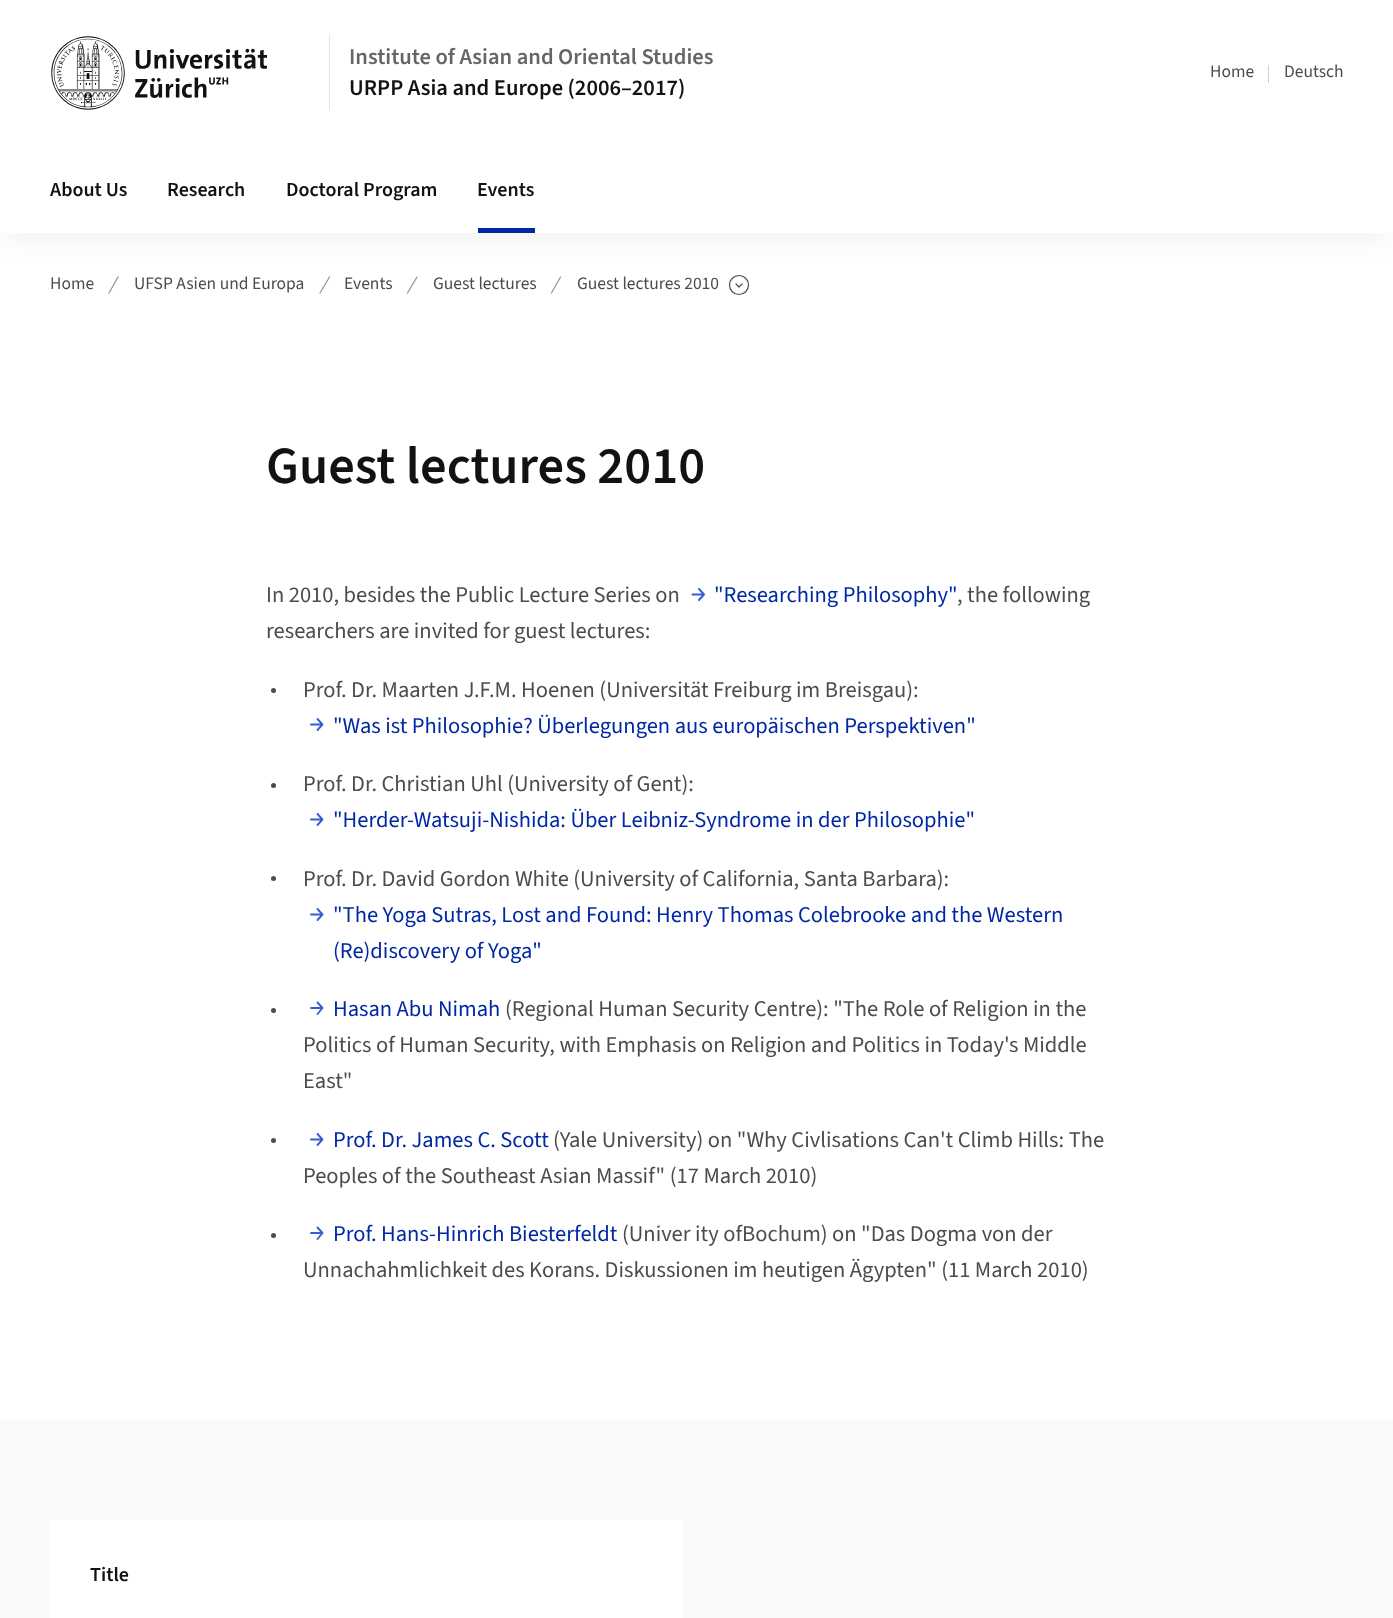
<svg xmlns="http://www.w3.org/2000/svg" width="1393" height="1618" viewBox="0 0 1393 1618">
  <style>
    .t1 { font: 600 22.5px 'Source Sans 3'; fill: #666; }
    .t2 { font: 600 22.5px 'Source Sans 3'; fill: #121212; }
    .t3 { font: 17.5px 'Source Sans 3'; fill: #4c4c4c; }
    .t4 { font: 600 20px 'Source Sans 3'; fill: #121212; }
    .t5 { font: 600 52.5px 'Source Sans 3'; fill: #121212; }
    .t6 { font: 22.5px 'Source Sans 3'; fill: #4c4c4c; }
    .t7 { font: 22.5px 'Source Sans 3'; fill: #0028a5; }
  </style>
  <rect width="100%" height="100%" fill="#fff"/>
  <path d="M109 293L118 277" fill="none" stroke="#949494" stroke-width="1.2" stroke-linecap="round"/>
  <path d="M320 293L329.5 277" fill="none" stroke="#949494" stroke-width="1.2" stroke-linecap="round"/>
  <path d="M407.5 293L417 277" fill="none" stroke="#949494" stroke-width="1.2" stroke-linecap="round"/>
  <path d="M551.5 293L560.5 277" fill="none" stroke="#949494" stroke-width="1.2" stroke-linecap="round"/>
  <path d="M742 284L739 287L736 284" fill="none" stroke="#4c4c4c" stroke-width="1.2" stroke-linecap="round" stroke-linejoin="round"/>
  <circle cx="739" cy="285" r="9.5" fill="none" stroke="#4c4c4c" stroke-width="1.2"/>
  <rect x="5" y="14" width="1384" height="222" fill="#12121212" filter="blur(14px)"/>
  <rect x="0" y="0" width="1393" height="233" fill="#fff"/>
  <image x="51" y="36" width="216" height="74" href="images/1.png"/>
  <rect x="329" y="35" width="1" height="75" fill="#e3e3e3"/>
  <text x="349" y="64" class="t1">Institute of Asian and Oriental Studies</text>
  <text x="349" y="95" class="t2">URPP Asia and Europe (2006–2017)</text>
  <text x="1210" y="77" class="t3">Home</text>
  <rect x="1268" y="65" width="1" height="18" fill="#d0d0d0"/>
  <text x="1284" y="77" class="t3">Deutsch</text>
  <text x="50" y="196" class="t4">About Us</text>
  <text x="167" y="196" class="t4">Research</text>
  <text x="286" y="196" class="t4">Doctoral Program</text>
  <text x="477" y="196" class="t4">Events</text>
  <rect x="478" y="228" width="57" height="5" fill="#0028a5"/>
  <text x="50" y="289" class="t3">Home</text>
  <text x="134" y="289" class="t3">UFSP Asien und Europa</text>
  <text x="344" y="289" class="t3">Events</text>
  <text x="433" y="289" class="t3">Guest lectures</text>
  <text x="577" y="289" class="t3">Guest lectures 2010</text>
  <text x="266" y="483" class="t5">Guest lectures 2010</text>
  <text x="266" y="602" class="t6">In 2010, besides the Public Lecture Series on</text>
  <path d="M699 589L704 594.5M704 594.5L699 600M704 594.5H692.5" fill="none" stroke="#365dd5" stroke-width="1.9" stroke-linecap="round" stroke-linejoin="round"/>
  <text x="714" y="602" class="t7">"Researching Philosophy"</text>
  <text x="957" y="602" class="t6">, the following</text>
  <text x="266" y="638" class="t6">researchers are invited for guest lectures:</text>
  <circle cx="273.5" cy="690.5" r="2.5" fill="#4c4c4c"/>
  <text x="303" y="697" class="t6">Prof. Dr. Maarten J.F.M. Hoenen (Universität Freiburg im Breisgau):</text>
  <path d="M317.5 719L322.5 724.5M322.5 724.5L317.5 730M322.5 724.5H311" fill="none" stroke="#365dd5" stroke-width="1.9" stroke-linecap="round" stroke-linejoin="round"/>
  <text x="333" y="733" class="t7">"Was ist Philosophie? Überlegungen aus europäischen Perspektiven"</text>
  <circle cx="273.5" cy="785.5" r="2.5" fill="#4c4c4c"/>
  <text x="303" y="791" class="t6">Prof. Dr. Christian Uhl (University of Gent):</text>
  <path d="M317.5 814L322.5 819.5M322.5 819.5L317.5 825M322.5 819.5H311" fill="none" stroke="#365dd5" stroke-width="1.9" stroke-linecap="round" stroke-linejoin="round"/>
  <text x="333" y="827" class="t7">"Herder-Watsuji-Nishida: Über Leibniz-Syndrome in der Philosophie"</text>
  <circle cx="273.5" cy="878.5" r="2.5" fill="#4c4c4c"/>
  <text x="303" y="886" class="t6">Prof. Dr. David Gordon White (University of California, Santa Barbara):</text>
  <path d="M317.5 909L322.5 914.5M322.5 914.5L317.5 920M322.5 914.5H311" fill="none" stroke="#365dd5" stroke-width="1.9" stroke-linecap="round" stroke-linejoin="round"/>
  <text x="333" y="922" class="t7">"The Yoga Sutras, Lost and Found: Henry Thomas Colebrooke and the Western</text>
  <text x="333" y="958" class="t7">(Re)discovery of Yoga"</text>
  <circle cx="273.5" cy="1010.5" r="2.5" fill="#4c4c4c"/>
  <path d="M317.5 1002.5L322.5 1008M322.5 1008L317.5 1014M322.5 1008H311" fill="none" stroke="#365dd5" stroke-width="1.9" stroke-linecap="round" stroke-linejoin="round"/>
  <text x="333" y="1016" class="t7">Hasan Abu Nimah</text>
  <text x="505" y="1016" class="t6">(Regional Human Security Centre): "The Role of Religion in the</text>
  <text x="303" y="1052" class="t6">Politics of Human Security, with Emphasis on Religion and Politics in Today's Middle</text>
  <text x="303" y="1088" class="t6">East"</text>
  <circle cx="273.5" cy="1140.5" r="2.5" fill="#4c4c4c"/>
  <path d="M317.5 1134L322.5 1139.5M322.5 1139.5L317.5 1145M322.5 1139.5H311" fill="none" stroke="#365dd5" stroke-width="1.9" stroke-linecap="round" stroke-linejoin="round"/>
  <text x="333" y="1147" class="t7">Prof. Dr. James C. Scott</text>
  <text x="553" y="1147" class="t6">(Yale University) on "Why Civlisations Can't Climb Hills: The</text>
  <text x="303" y="1183" class="t6">Peoples of the Southeast Asian Massif" (17 March 2010)</text>
  <circle cx="273.5" cy="1235.5" r="2.5" fill="#4c4c4c"/>
  <path d="M317.5 1227.5L322.5 1233M322.5 1233L317.5 1239M322.5 1233H311" fill="none" stroke="#365dd5" stroke-width="1.9" stroke-linecap="round" stroke-linejoin="round"/>
  <text x="333" y="1241" class="t7">Prof. Hans-Hinrich Biesterfeldt</text>
  <text x="622" y="1241" class="t6">(Univer ity ofBochum) on "Das Dogma von der</text>
  <text x="303" y="1277" class="t6">Unnachahmlichkeit des Korans. Diskussionen im heutigen Ägypten" (11 March 2010)</text>
  <rect x="0" y="1420" width="1393" height="198" fill="#fafafa"/>
  <rect x="50" y="1520" width="633" height="98" fill="#fff"/>
  <text x="90" y="1581" class="t4">Title</text>
</svg>
